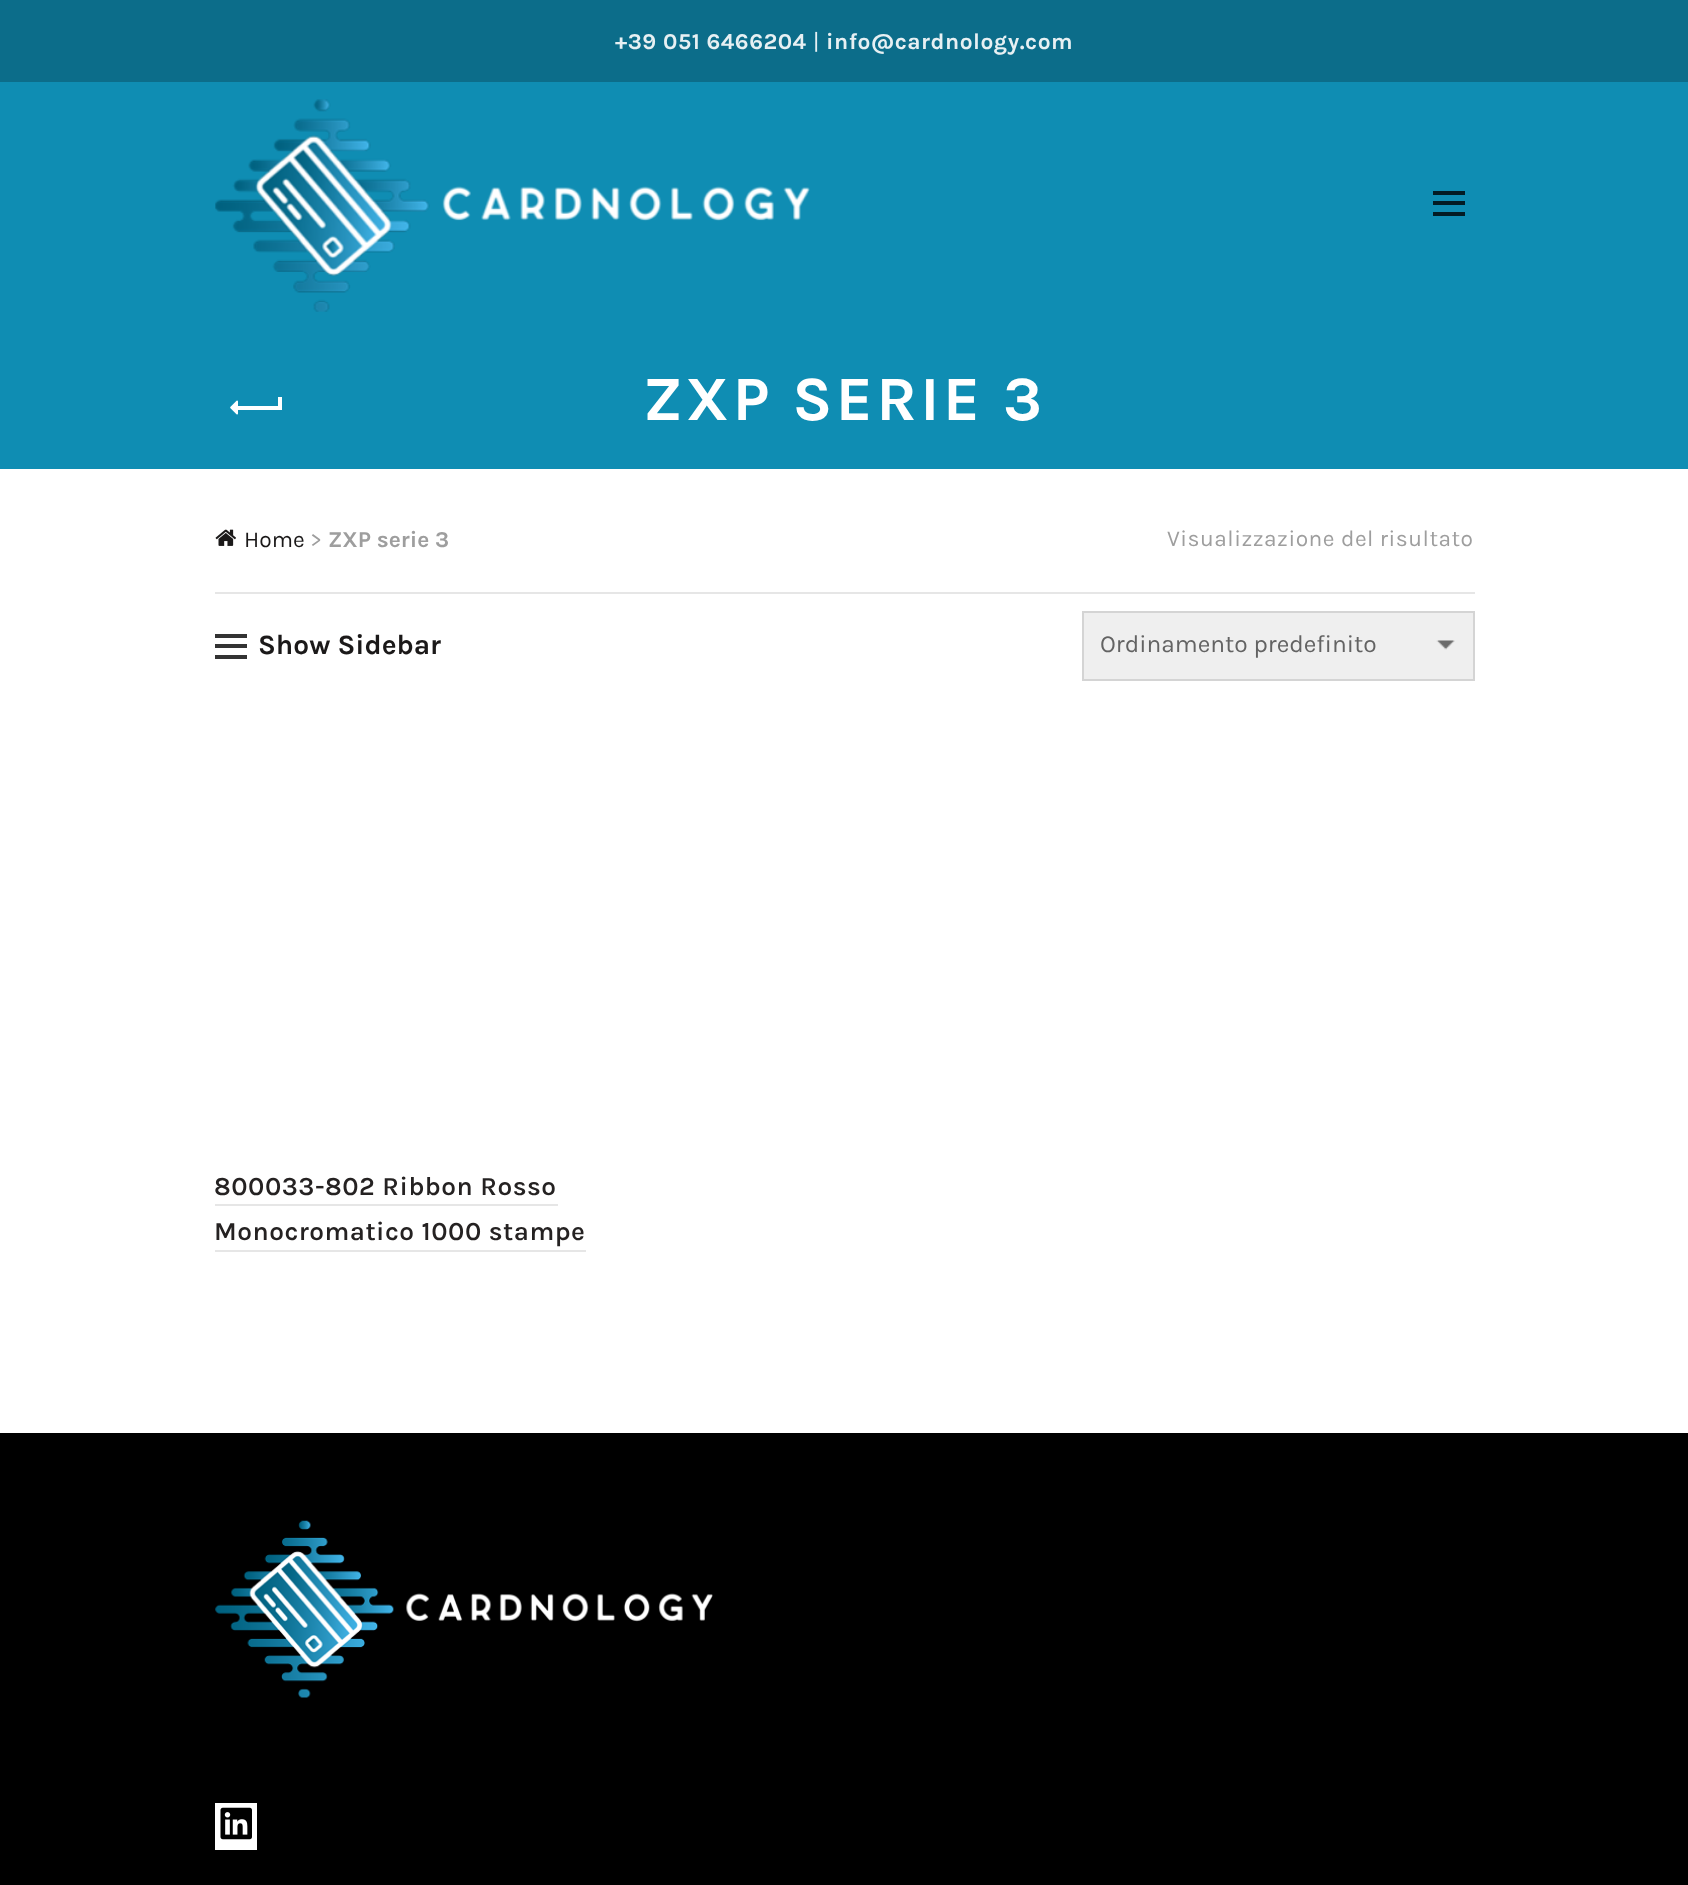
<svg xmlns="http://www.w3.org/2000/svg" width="1688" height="1885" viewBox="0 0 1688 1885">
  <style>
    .t1 { font: bold 22.75px Karla; letter-spacing: 0.5px; fill: #e7f0f3; }
    .t2 { font: 22.75px Karla; letter-spacing: 0.5px; fill: #e7f0f3; }
    .t3 { font: bold 63px Karla; letter-spacing: 3.5px; fill: #fff; }
    .t4 { font: 22.75px Karla; fill: #1b1919; }
    .t5 { font: 22.75px Karla; fill: #9e9e9e; }
    .t6 { font: bold 22.75px Karla; fill: #9e9e9e; }
    .t7 { font: 22.75px Karla; letter-spacing: 0.5px; fill: #9e9e9e; }
    .t8 { font: bold 28px Karla; fill: #1b1919; }
    .t9 { font: 24.5px Karla; fill: #636363; }
    .t10 { font: 600 26.25px Karla; letter-spacing: 0.5px; fill: #252222; }
  </style>
  <rect width="100%" height="100%" fill="#fff"/>
  <rect x="0" y="0" width="1688" height="82" fill="#0c6d8a"/>
  <text x="615" y="49" class="t1">+39 051 6466204</text>
  <text x="813" y="49" class="t2">|</text>
  <text x="826" y="49" class="t1">info@cardnology.com</text>
  <rect x="0" y="82" width="1688" height="387" fill="#0f8db3"/>
  <image x="215" y="99" width="595" height="213" href="images/1.png"/>
  <rect x="1433" y="201" width="32" height="4" fill="#031c24"/>
  <rect x="1433" y="191" width="32" height="4" fill="#031c24"/>
  <rect x="1433" y="212" width="32" height="4" fill="#031c24"/>
  <rect x="236" y="406" width="44" height="4" fill="#fff"/>
  <image x="230" y="400" width="8" height="15" href="images/2.png"/>
  <rect x="278" y="397" width="4" height="13" fill="#fff"/>
  <text x="643" y="420" class="t3">ZXP SERIE 3</text>
  <image x="215" y="529" width="21" height="17" href="images/3.png"/>
  <text x="244" y="547" class="t4">Home</text>
  <text x="310" y="547" class="t5">&gt;</text>
  <text x="328" y="547" class="t6">ZXP serie 3</text>
  <rect x="215" y="592" width="1260" height="2" fill="#e6e6e6"/>
  <text x="1167" y="546" class="t7">Visualizzazione del risultato</text>
  <rect x="215" y="644" width="32" height="4" fill="#333"/>
  <rect x="215" y="634" width="32" height="4" fill="#333"/>
  <rect x="215" y="655" width="32" height="4" fill="#333"/>
  <text x="258" y="654" class="t8">Show Sidebar</text>
  <rect x="1084" y="613" width="389" height="66" fill="#efefef"/>
  <image x="1436" y="640" width="19" height="10" href="images/4.png"/>
  <rect x="1083" y="612" width="391" height="68" fill="none" stroke="#d4d4d4" stroke-width="2"/>
  <text x="1100" y="652" class="t9">Ordinamento predefinito</text>
  <text x="214" y="1195" class="t10">800033-802 Ribbon Rosso</text>
  <rect x="215" y="1204" width="343" height="2" fill="#e6e6e6"/>
  <text x="214" y="1240" class="t10">Monocromatico 1000 stampe</text>
  <rect x="215" y="1250" width="371" height="2" fill="#e6e6e6"/>
  <rect x="0" y="1433" width="1688" height="452" fill="#000"/>
  <image x="215" y="1520" width="498" height="178" href="images/5.png"/>
  <rect x="215" y="1803" width="42" height="47" fill="#fff"/>
  <image x="220" y="1807" width="32" height="33" href="images/6.png"/>
</svg>
